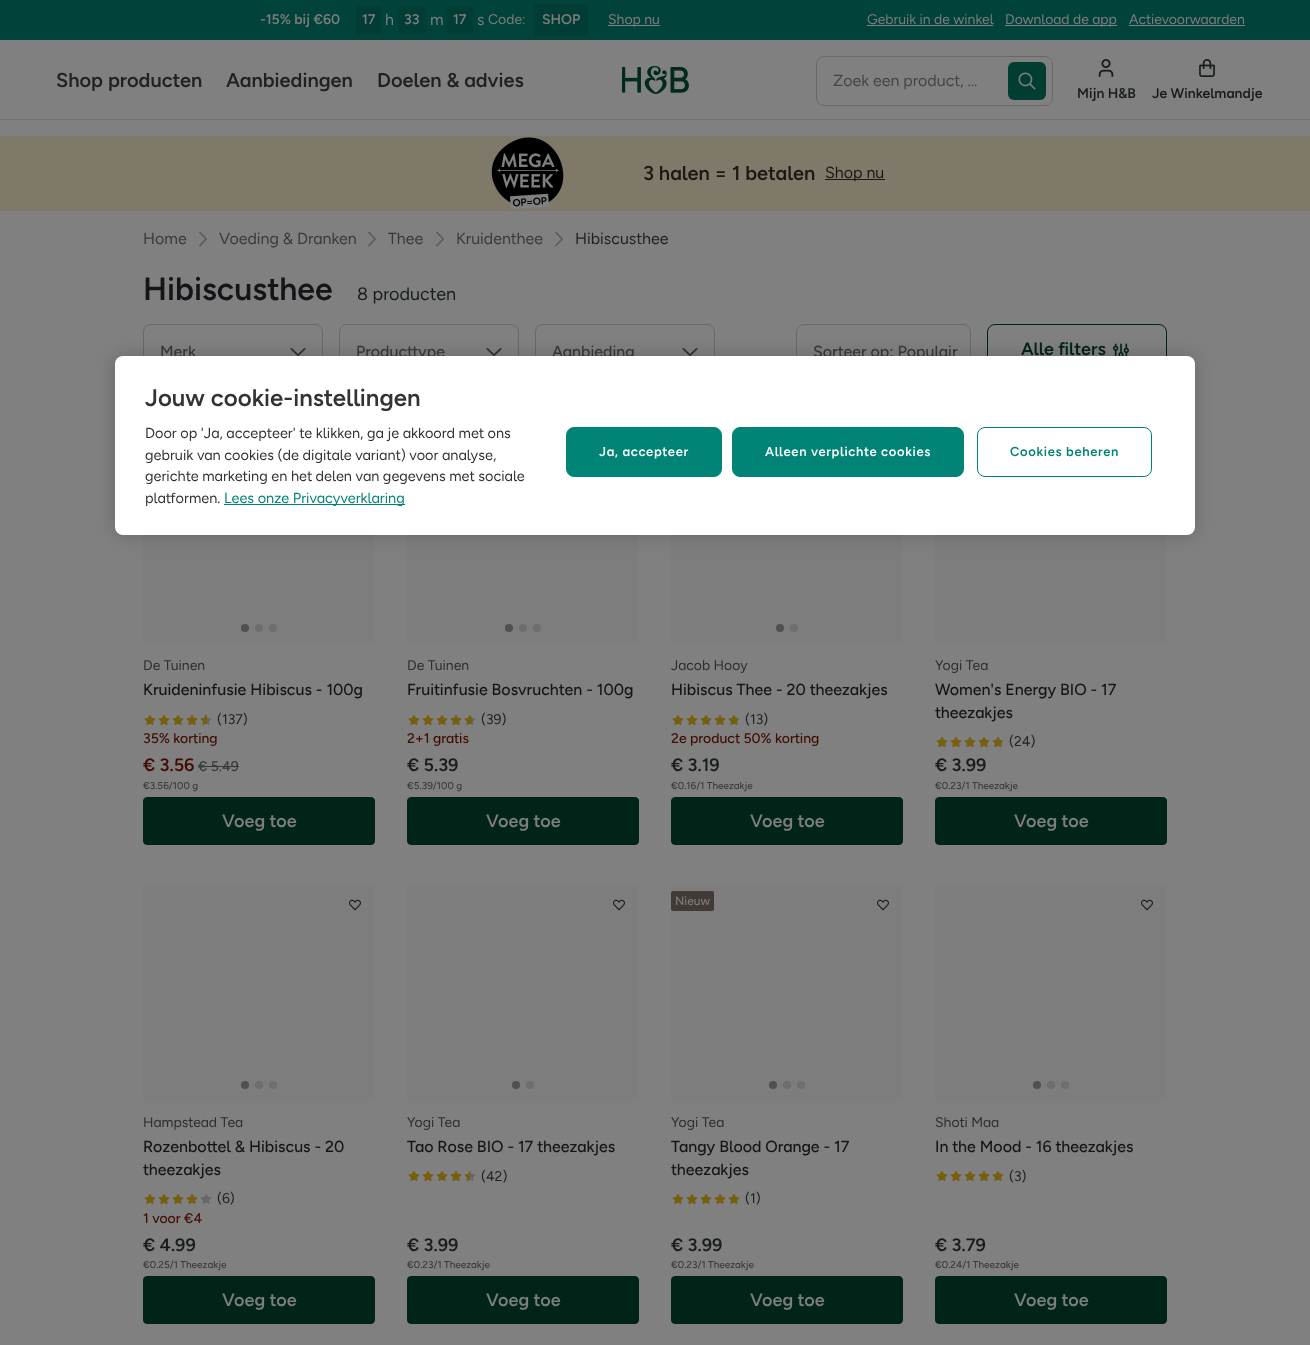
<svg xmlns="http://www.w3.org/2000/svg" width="1310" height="1345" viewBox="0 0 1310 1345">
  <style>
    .t1 { font: 600 14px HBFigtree; fill: #7d7d7d; }
    .t2 { font: 16px HBFigtree; fill: #7d7d7d; }
    .t3 { font: 14px HBFigtree; fill: #7d7d7d; }
    .t4 { font: 600 20px HBFigtree; fill: #202124; }
    .t5 { font: 16px HBFigtree; fill: #444446; }
    .t6 { font: 600 14px HBFigtree; fill: #161c1c; }
    .t7 { font: 600 20px HBFigtree; fill: #1b1815; }
    .t8 { font: 16px HBFigtree; fill: #1b1815; }
    .t9 { font: 16px HBFigtree; fill: #38393b; }
    .t10 { font: 16px HBFigtree; fill: #202124; }
    .t11 { font: 600 32px HBFigtree; fill: #141518; }
    .t12 { font: 18px HBFigtree; fill: #161c1c; }
    .t13 { font: 500 16px HBFigtree; fill: #38393b; }
    .t14 { font: 600 18px HBFigtree; fill: #002417; }
    .t15 { font: 14px HBFigtree; fill: #2c2d2f; }
    .t16 { font: 500 16px HBFigtree; fill: #141518; }
    .t17 { font: 14px HBFigtree; fill: #202124; }
    .t18 { font: 500 14px HBFigtree; fill: #400b00; }
    .t19 { font: 600 18px HBFigtree; fill: #400b00; }
    .t20 { font: 500 14px HBFigtree; fill: #38393b; }
    .t21 { font: 500 10px HBFigtree; fill: #38393b; }
    .t22 { font: 600 18px HBFigtree; fill: #7d7d7d; }
    .t23 { font: 600 18px HBFigtree; fill: #161c1c; }
    .t24 { font: 500 12px HBFigtree; fill: #7d7d7d; }
    .t25 { font: 600 24px HBFigtree; fill: #333; }
    .t26 { font: 14.5px HBFigtree; fill: #333; }
    .t27 { font: 14.5px HBFigtree; fill: #018476; }
    .t28 { font: 600 13px HBFigtree; letter-spacing: 0.65px; fill: #fff; }
    .t29 { font: 600 13px HBFigtree; letter-spacing: 0.65px; fill: #018476; }
  </style>
  <rect width="100%" height="100%" fill="#808080"/>
  <rect x="0" y="0" width="1310" height="40" fill="#01423b"/>
  <text x="260" y="24" class="t1">-15% bij €60</text>
  <rect x="356" y="6" width="25" height="28" rx="2" fill="#013c35"/>
  <text x="362" y="24" class="t1">17</text>
  <text x="385" y="25" class="t2">h</text>
  <rect x="398" y="6" width="28" height="28" rx="2" fill="#013c35"/>
  <text x="404" y="24" class="t1">33</text>
  <text x="430" y="25" class="t2">m</text>
  <rect x="447" y="6" width="26" height="28" rx="2" fill="#013c35"/>
  <text x="453" y="24" class="t1">17</text>
  <text x="477" y="25" class="t2">s</text>
  <text x="488" y="24" class="t3">Code:</text>
  <rect x="534" y="4" width="54" height="32" rx="4" fill="#013c35"/>
  <text x="542" y="24" class="t1">SHOP</text>
  <rect x="608" y="25" width="52" height="1" fill="#808080"/>
  <text x="608" y="24" class="t3">Shop nu</text>
  <text x="867" y="24" class="t3">Gebruik in de winkel</text>
  <rect x="867" y="25" width="126" height="1" fill="#808080"/>
  <rect x="1005" y="25" width="112" height="1" fill="#808080"/>
  <text x="1005" y="24" class="t3">Download de app</text>
  <text x="1129" y="24" class="t3">Actievoorwaarden</text>
  <rect x="1129" y="25" width="116" height="1" fill="#808080"/>
  <rect x="0" y="119" width="1310" height="1" fill="#747474"/>
  <text x="56" y="87" class="t4">Shop producten</text>
  <text x="226" y="87" class="t4">Aanbiedingen</text>
  <text x="377" y="87" class="t4">Doelen &amp; advies</text>
  <image x="622" y="66" width="67" height="28" href="images/1.png"/>
  <path d="M824 56H1008V106H824C820 106 816 102 816 98V64C816 60 820 56 824 56ZM824 57H1008V105H824C820 105 817 102 817 98V64C817 60 820 57 824 57Z" fill="#686869" fill-rule="evenodd"/>
  <text x="833" y="86" class="t5">Zoek een product, …</text>
  <path d="M1008 56H1045C1049 56 1053 60 1053 64V98C1053 102 1049 106 1045 106H1008ZM1008 57H1045C1049 57 1052 60 1052 64V98C1052 102 1049 105 1045 105H1008Z" fill="#686869" fill-rule="evenodd"/>
  <rect x="1008" y="62" width="38" height="38" rx="6" fill="#013d33"/>
  <image x="1018" y="72" width="18" height="18" href="images/2.png"/>
  <image x="1098" y="59" width="16" height="18" href="images/3.png"/>
  <text x="1077" y="98" class="t6">Mijn H&amp;B</text>
  <image x="1199" y="59" width="16" height="18" href="images/4.png"/>
  <text x="1152" y="98" class="t6">Je Winkelmandje</text>
  <rect x="0" y="136" width="1310" height="75" fill="#7e7969"/>
  <image x="491" y="137" width="73" height="73" href="images/5.png"/>
  <text x="643" y="180" class="t7">3 halen = 1 betalen</text>
  <rect x="825" y="179" width="60" height="1" fill="#1b1815"/>
  <text x="825" y="178" class="t8">Shop nu</text>
  <text x="143" y="244" class="t9">Home</text>
  <image x="199" y="231" width="8" height="16" href="images/6.png"/>
  <text x="219" y="244" class="t9">Voeding &amp; Dranken</text>
  <image x="368" y="231" width="8" height="16" href="images/6.png"/>
  <text x="388" y="244" class="t9">Thee</text>
  <image x="436" y="231" width="8" height="16" href="images/6.png"/>
  <text x="456" y="244" class="t9">Kruidenthee</text>
  <image x="555" y="231" width="8" height="16" href="images/6.png"/>
  <text x="575" y="244" class="t10">Hibiscusthee</text>
  <text x="143" y="300" class="t11">Hibiscusthee</text>
  <text x="357" y="300" class="t12">8 producten</text>
  <rect x="143.5" y="324.5" width="179" height="55" rx="7.5" fill="none" stroke="#686869"/>
  <text x="160" y="357" class="t13">Merk</text>
  <image x="290" y="348" width="16" height="8" href="images/7.png"/>
  <rect x="339.5" y="324.5" width="179" height="55" rx="7.5" fill="none" stroke="#686869"/>
  <text x="356" y="357" class="t13">Producttype</text>
  <image x="486" y="348" width="16" height="8" href="images/7.png"/>
  <rect x="535.5" y="324.5" width="179" height="55" rx="7.5" fill="none" stroke="#686869"/>
  <text x="552" y="357" class="t13">Aanbieding</text>
  <image x="682" y="348" width="16" height="8" href="images/7.png"/>
  <rect x="796.5" y="324.5" width="174" height="55" rx="7.5" fill="none" stroke="#686869"/>
  <text x="813" y="357" class="t13">Sorteer op: Populair</text>
  <rect x="987.5" y="324.5" width="179" height="55" rx="7.5" fill="none" stroke="#002417"/>
  <text x="1021" y="355" class="t14">Alle filters</text>
  <image x="1113" y="343" width="16" height="13" href="images/8.png"/>
  <rect x="143" y="535" width="232" height="109" fill="#7d7d7d"/>
  <circle cx="245" cy="628" r="4" fill="#505052"/>
  <circle cx="259" cy="628" r="4" fill="#6e6e6f"/>
  <circle cx="273" cy="628" r="4" fill="#6e6e6f"/>
  <text x="143" y="670" class="t15">De Tuinen</text>
  <text x="143" y="695" class="t16">Kruideninfusie Hibiscus - 100g</text>
  <image x="144" y="715" width="12" height="10" href="images/9.png"/>
  <image x="158" y="715" width="12" height="10" href="images/9.png"/>
  <image x="172" y="715" width="12" height="10" href="images/9.png"/>
  <image x="186" y="715" width="12" height="10" href="images/9.png"/>
  <image x="200" y="715" width="12" height="10" href="images/9.png"/>
  <image x="144" y="715" width="12" height="10" href="images/10.png"/>
  <image x="158" y="715" width="12" height="10" href="images/10.png"/>
  <image x="172" y="715" width="12" height="10" href="images/10.png"/>
  <image x="186" y="715" width="12" height="10" href="images/10.png"/>
  <image x="200" y="715" width="7" height="10" href="images/11.png"/>
  <text x="217" y="724" class="t17">(137)</text>
  <text x="143" y="743" class="t18">35% korting</text>
  <text x="143" y="771" class="t19">€ 3.56</text>
  <text x="198" y="771" class="t20">€ 5.49</text>
  <rect x="198" y="766" width="41" height="1" fill="#38393b"/>
  <text x="143" y="789" class="t21">€3.56/100 g</text>
  <rect x="143.5" y="797.5" width="231" height="47" rx="3.5" fill="#002417" stroke="#002417"/>
  <text x="222" y="827" class="t22">Voeg toe</text>
  <rect x="407" y="535" width="232" height="109" fill="#7d7d7d"/>
  <circle cx="509" cy="628" r="4" fill="#505052"/>
  <circle cx="523" cy="628" r="4" fill="#6e6e6f"/>
  <circle cx="537" cy="628" r="4" fill="#6e6e6f"/>
  <text x="407" y="670" class="t15">De Tuinen</text>
  <text x="407" y="695" class="t16">Fruitinfusie Bosvruchten - 100g</text>
  <image x="408" y="715" width="12" height="10" href="images/9.png"/>
  <image x="422" y="715" width="12" height="10" href="images/9.png"/>
  <image x="436" y="715" width="12" height="10" href="images/9.png"/>
  <image x="450" y="715" width="12" height="10" href="images/9.png"/>
  <image x="464" y="715" width="12" height="10" href="images/9.png"/>
  <image x="408" y="715" width="12" height="10" href="images/10.png"/>
  <image x="422" y="715" width="12" height="10" href="images/10.png"/>
  <image x="436" y="715" width="12" height="10" href="images/10.png"/>
  <image x="450" y="715" width="12" height="10" href="images/10.png"/>
  <image x="464" y="715" width="8" height="10" href="images/12.png"/>
  <text x="481" y="724" class="t17">(39)</text>
  <text x="407" y="743" class="t18">2+1 gratis</text>
  <text x="407" y="771" class="t23">€ 5.39</text>
  <text x="407" y="789" class="t21">€5.39/100 g</text>
  <rect x="407.5" y="797.5" width="231" height="47" rx="3.5" fill="#002417" stroke="#002417"/>
  <text x="486" y="827" class="t22">Voeg toe</text>
  <rect x="671" y="535" width="232" height="109" fill="#7d7d7d"/>
  <circle cx="780" cy="628" r="4" fill="#505052"/>
  <circle cx="794" cy="628" r="4" fill="#6e6e6f"/>
  <text x="671" y="670" class="t15">Jacob Hooy</text>
  <text x="671" y="695" class="t16">Hibiscus Thee - 20 theezakjes</text>
  <image x="672" y="715" width="12" height="10" href="images/9.png"/>
  <image x="686" y="715" width="12" height="10" href="images/9.png"/>
  <image x="700" y="715" width="12" height="10" href="images/9.png"/>
  <image x="714" y="715" width="12" height="10" href="images/9.png"/>
  <image x="728" y="715" width="12" height="10" href="images/9.png"/>
  <image x="672" y="715" width="12" height="10" href="images/10.png"/>
  <image x="686" y="715" width="12" height="10" href="images/10.png"/>
  <image x="700" y="715" width="12" height="10" href="images/10.png"/>
  <image x="714" y="715" width="12" height="10" href="images/10.png"/>
  <image x="728" y="715" width="10" height="10" href="images/13.png"/>
  <text x="745" y="724" class="t17">(13)</text>
  <text x="671" y="743" class="t18">2e product 50% korting</text>
  <text x="671" y="771" class="t23">€ 3.19</text>
  <text x="671" y="789" class="t21">€0.16/1 Theezakje</text>
  <rect x="671.5" y="797.5" width="231" height="47" rx="3.5" fill="#002417" stroke="#002417"/>
  <text x="750" y="827" class="t22">Voeg toe</text>
  <rect x="935" y="535" width="232" height="109" fill="#7d7d7d"/>
  <text x="935" y="670" class="t15">Yogi Tea</text>
  <text x="935" y="695" class="t16">Women's Energy BIO - 17</text>
  <text x="935" y="718" class="t16">theezakjes</text>
  <image x="936" y="737" width="12" height="10" href="images/9.png"/>
  <image x="950" y="737" width="12" height="10" href="images/9.png"/>
  <image x="964" y="737" width="12" height="10" href="images/9.png"/>
  <image x="978" y="737" width="12" height="10" href="images/9.png"/>
  <image x="992" y="737" width="12" height="10" href="images/9.png"/>
  <image x="936" y="737" width="12" height="10" href="images/10.png"/>
  <image x="950" y="737" width="12" height="10" href="images/10.png"/>
  <image x="964" y="737" width="12" height="10" href="images/10.png"/>
  <image x="978" y="737" width="12" height="10" href="images/10.png"/>
  <image x="992" y="737" width="10" height="10" href="images/13.png"/>
  <text x="1009" y="746" class="t17">(24)</text>
  <text x="935" y="771" class="t23">€ 3.99</text>
  <text x="935" y="789" class="t21">€0.23/1 Theezakje</text>
  <rect x="935.5" y="797.5" width="231" height="47" rx="3.5" fill="#002417" stroke="#002417"/>
  <text x="1014" y="827" class="t22">Voeg toe</text>
  <rect x="143" y="885" width="232" height="216" fill="#7d7d7d"/>
  <circle cx="245" cy="1085" r="4" fill="#505052"/>
  <circle cx="259" cy="1085" r="4" fill="#6e6e6f"/>
  <circle cx="273" cy="1085" r="4" fill="#6e6e6f"/>
  <image x="349" y="899" width="12" height="12" href="images/14.png"/>
  <text x="143" y="1127" class="t15">Hampstead Tea</text>
  <text x="143" y="1152" class="t16">Rozenbottel &amp; Hibiscus - 20</text>
  <text x="143" y="1175" class="t16">theezakjes</text>
  <image x="144" y="1194" width="12" height="10" href="images/9.png"/>
  <image x="158" y="1194" width="12" height="10" href="images/9.png"/>
  <image x="172" y="1194" width="12" height="10" href="images/9.png"/>
  <image x="186" y="1194" width="12" height="10" href="images/9.png"/>
  <image x="200" y="1194" width="12" height="10" href="images/9.png"/>
  <image x="144" y="1194" width="12" height="10" href="images/10.png"/>
  <image x="158" y="1194" width="12" height="10" href="images/10.png"/>
  <image x="172" y="1194" width="12" height="10" href="images/10.png"/>
  <image x="186" y="1194" width="12" height="10" href="images/10.png"/>
  <text x="217" y="1203" class="t17">(6)</text>
  <text x="143" y="1223" class="t18">1 voor €4</text>
  <text x="143" y="1251" class="t23">€ 4.99</text>
  <text x="143" y="1268" class="t21">€0.25/1 Theezakje</text>
  <rect x="143.5" y="1276.5" width="231" height="47" rx="3.5" fill="#002417" stroke="#002417"/>
  <text x="222" y="1306" class="t22">Voeg toe</text>
  <rect x="407" y="885" width="232" height="216" fill="#7d7d7d"/>
  <circle cx="516" cy="1085" r="4" fill="#505052"/>
  <circle cx="530" cy="1085" r="4" fill="#6e6e6f"/>
  <image x="613" y="899" width="12" height="12" href="images/14.png"/>
  <text x="407" y="1127" class="t15">Yogi Tea</text>
  <text x="407" y="1152" class="t16">Tao Rose BIO - 17 theezakjes</text>
  <image x="408" y="1171" width="12" height="10" href="images/9.png"/>
  <image x="422" y="1171" width="12" height="10" href="images/9.png"/>
  <image x="436" y="1171" width="12" height="10" href="images/9.png"/>
  <image x="450" y="1171" width="12" height="10" href="images/9.png"/>
  <image x="464" y="1171" width="12" height="10" href="images/9.png"/>
  <image x="408" y="1171" width="12" height="10" href="images/10.png"/>
  <image x="422" y="1171" width="12" height="10" href="images/10.png"/>
  <image x="436" y="1171" width="12" height="10" href="images/10.png"/>
  <image x="450" y="1171" width="12" height="10" href="images/10.png"/>
  <image x="464" y="1171" width="6" height="10" href="images/15.png"/>
  <text x="481" y="1181" class="t17">(42)</text>
  <text x="407" y="1251" class="t23">€ 3.99</text>
  <text x="407" y="1268" class="t21">€0.23/1 Theezakje</text>
  <rect x="407.5" y="1276.5" width="231" height="47" rx="3.5" fill="#002417" stroke="#002417"/>
  <text x="486" y="1306" class="t22">Voeg toe</text>
  <rect x="671" y="885" width="232" height="216" fill="#7d7d7d"/>
  <rect x="671" y="891" width="43" height="20" rx="2" fill="#413a36"/>
  <text x="675" y="905" class="t24">Nieuw</text>
  <circle cx="773" cy="1085" r="4" fill="#505052"/>
  <circle cx="787" cy="1085" r="4" fill="#6e6e6f"/>
  <circle cx="801" cy="1085" r="4" fill="#6e6e6f"/>
  <image x="877" y="899" width="12" height="12" href="images/14.png"/>
  <text x="671" y="1127" class="t15">Yogi Tea</text>
  <text x="671" y="1152" class="t16">Tangy Blood Orange - 17</text>
  <text x="671" y="1175" class="t16">theezakjes</text>
  <image x="672" y="1194" width="12" height="10" href="images/9.png"/>
  <image x="686" y="1194" width="12" height="10" href="images/9.png"/>
  <image x="700" y="1194" width="12" height="10" href="images/9.png"/>
  <image x="714" y="1194" width="12" height="10" href="images/9.png"/>
  <image x="728" y="1194" width="12" height="10" href="images/9.png"/>
  <image x="672" y="1194" width="12" height="10" href="images/10.png"/>
  <image x="686" y="1194" width="12" height="10" href="images/10.png"/>
  <image x="700" y="1194" width="12" height="10" href="images/10.png"/>
  <image x="714" y="1194" width="12" height="10" href="images/10.png"/>
  <image x="728" y="1194" width="12" height="10" href="images/10.png"/>
  <text x="745" y="1203" class="t17">(1)</text>
  <text x="671" y="1251" class="t23">€ 3.99</text>
  <text x="671" y="1268" class="t21">€0.23/1 Theezakje</text>
  <rect x="671.5" y="1276.5" width="231" height="47" rx="3.5" fill="#002417" stroke="#002417"/>
  <text x="750" y="1306" class="t22">Voeg toe</text>
  <rect x="935" y="885" width="232" height="216" fill="#7d7d7d"/>
  <circle cx="1037" cy="1085" r="4" fill="#505052"/>
  <circle cx="1051" cy="1085" r="4" fill="#6e6e6f"/>
  <circle cx="1065" cy="1085" r="4" fill="#6e6e6f"/>
  <image x="1141" y="899" width="12" height="12" href="images/14.png"/>
  <text x="935" y="1127" class="t15">Shoti Maa</text>
  <text x="935" y="1152" class="t16">In the Mood - 16 theezakjes</text>
  <image x="936" y="1171" width="12" height="10" href="images/9.png"/>
  <image x="950" y="1171" width="12" height="10" href="images/9.png"/>
  <image x="964" y="1171" width="12" height="10" href="images/9.png"/>
  <image x="978" y="1171" width="12" height="10" href="images/9.png"/>
  <image x="992" y="1171" width="12" height="10" href="images/9.png"/>
  <image x="936" y="1171" width="12" height="10" href="images/10.png"/>
  <image x="950" y="1171" width="12" height="10" href="images/10.png"/>
  <image x="964" y="1171" width="12" height="10" href="images/10.png"/>
  <image x="978" y="1171" width="12" height="10" href="images/10.png"/>
  <image x="992" y="1171" width="12" height="10" href="images/10.png"/>
  <text x="1009" y="1181" class="t17">(3)</text>
  <text x="935" y="1251" class="t23">€ 3.79</text>
  <text x="935" y="1268" class="t21">€0.24/1 Theezakje</text>
  <rect x="935.5" y="1276.5" width="231" height="47" rx="3.5" fill="#002417" stroke="#002417"/>
  <text x="1014" y="1306" class="t22">Voeg toe</text>
  <rect x="115" y="356" width="1080" height="179" rx="8" fill="#00000033" filter="blur(9px)"/>
  <rect x="115" y="356" width="1080" height="179" rx="8" fill="#fff"/>
  <text x="145" y="406" class="t25">Jouw cookie-instellingen</text>
  <text x="145" y="438" class="t26">Door op 'Ja, accepteer' te klikken, ga je akkoord met ons</text>
  <text x="145" y="460" class="t26">gebruik van cookies (de digitale variant) voor analyse,</text>
  <text x="145" y="481" class="t26">gerichte marketing en het delen van gegevens met sociale</text>
  <text x="145" y="503" class="t26">platformen.</text>
  <rect x="224" y="504" width="181" height="1" fill="#018476"/>
  <text x="224" y="503" class="t27">Lees onze Privacyverklaring</text>
  <rect x="566.5" y="427.5" width="155" height="49" rx="7.5" fill="#018476" stroke="#018476"/>
  <text x="599" y="456" class="t28">Ja, accepteer</text>
  <rect x="732.5" y="427.5" width="231" height="49" rx="7.5" fill="#018476" stroke="#018476"/>
  <text x="765" y="456" class="t28">Alleen verplichte cookies</text>
  <rect x="977.5" y="427.5" width="174" height="49" rx="7.5" fill="none" stroke="#018476"/>
  <text x="1010" y="456" class="t29">Cookies beheren</text>
</svg>
